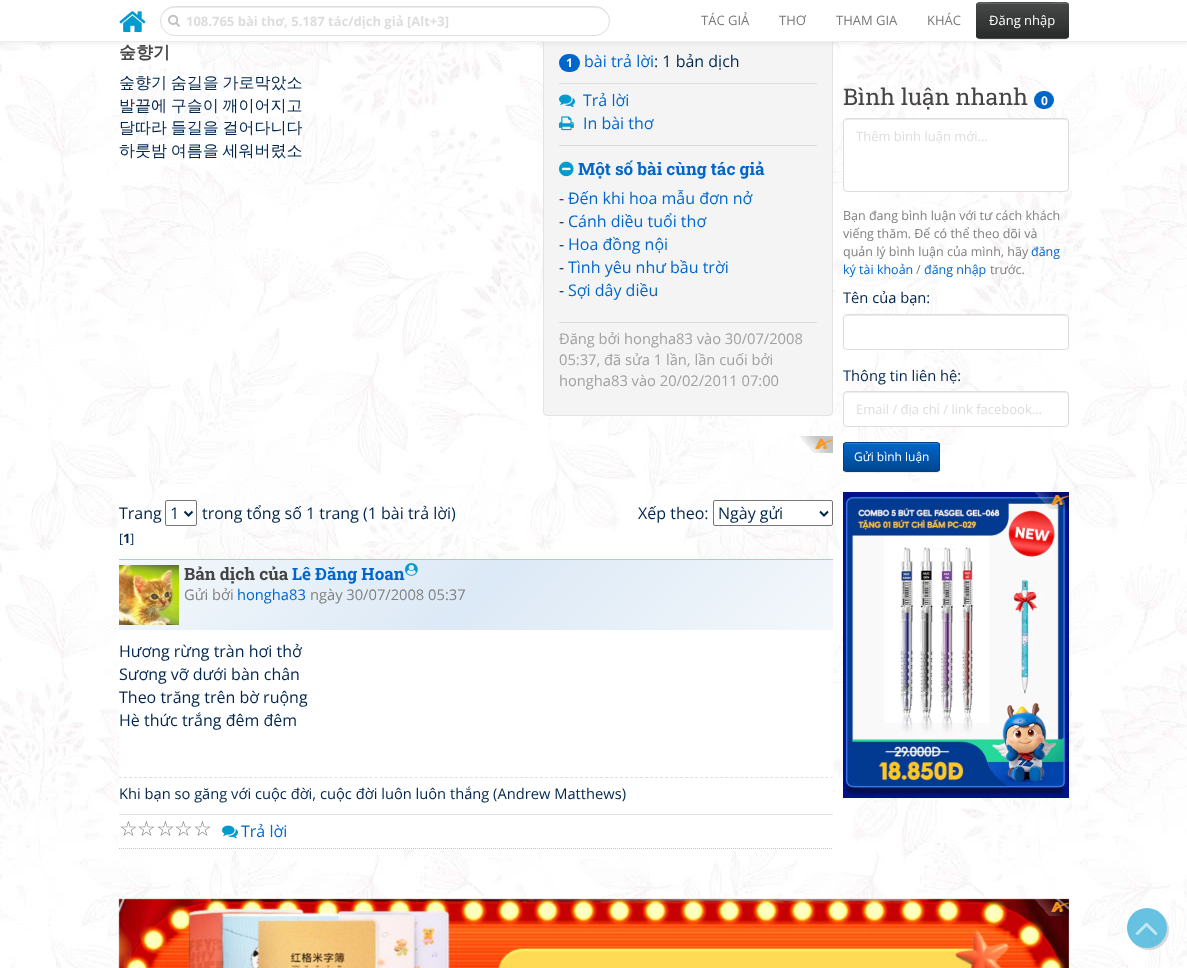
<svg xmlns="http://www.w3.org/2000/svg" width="1187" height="968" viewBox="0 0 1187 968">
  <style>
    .t1 { font: bold 13px Open Sans; fill: #ddd; }
    .t2 { font: 13px Open Sans; fill: #777; }
    .t3 { font: 13px Open Sans; fill: #fff; }
    .t4 { font: bold 17px WenQuanYi Zen Hei; fill: #444; }
    .t5 { font: 500 16px WenQuanYi Zen Hei; fill: #00264d; }
    .t6 { font: bold 12px Open Sans; fill: #fff; }
    .t7 { font: 16px Open Sans; fill: #06c; }
    .t8 { font: 16px Open Sans; fill: #00264d; }
    .t9 { font: bold 17px Roboto Slab; fill: #06c; }
    .t10 { font: 14.7px Open Sans; fill: #a0a0a0; }
    .t11 { font: 13px Open Sans; fill: #00264d; }
    .t12 { font: bold 13px Open Sans; fill: #00264d; }
    .t13 { font: bold 17px Roboto Slab; fill: #444; }
    .t14 { font: 14.7px Open Sans; fill: #808080; }
    .t15 { font: 14.7px Open Sans; fill: #06c; }
    .t16 { font: 14.7px Open Sans; fill: #00264d; }
    .t17 { font: 21px DejaVu Sans; fill: #808080; }
    .t18 { font: 23px Roboto Slab; fill: #444; }
    .t19 { font: bold 12px Roboto Slab; fill: #fff; }
    .t20 { font: 13px Open Sans; fill: #ddd; }
    .t21 { font: 12.5px Open Sans; fill: #808080; }
    .t22 { font: 12.5px Open Sans; fill: #06c; }
    .t23 { font: 12px Open Sans; fill: #fff; }
  </style>
  <defs>
    <clipPath id="clip1"><rect x="976" y="2" width="93" height="37" rx="4"/></clipPath>
    <linearGradient id="g1" gradientUnits="userSpaceOnUse" x1="1023" y1="3" x2="1023" y2="38"><stop offset="0" stop-color="#474949"/><stop offset="1" stop-color="#292a2a"/></linearGradient>
    <clipPath id="clip2"><path d="M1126 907H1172V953H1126ZM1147 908C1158 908 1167 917 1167 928C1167 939 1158 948 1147 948C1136 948 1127 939 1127 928C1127 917 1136 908 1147 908Z" clip-rule="evenodd"/></clipPath>
    <linearGradient id="g2" gradientUnits="userSpaceOnUse" x1="672" y1="791" x2="280" y2="399"><stop offset="0" stop-color="#f4f8fb"/><stop offset="0.5" stop-color="#dce9f6"/><stop offset="1" stop-color="#f4f8fb"/></linearGradient>
    <clipPath id="clip3"><rect x="843" y="442" width="97" height="30" rx="3"/></clipPath>
    <linearGradient id="g3" gradientUnits="userSpaceOnUse" x1="892" y1="443" x2="892" y2="471"><stop offset="0" stop-color="#06c"/><stop offset="1" stop-color="#00478f"/></linearGradient>
  </defs>
  <rect width="100%" height="100%" fill="#fff"/>
  <image x="0" y="42" width="1187" height="926" href="images/1.png"/>
  <rect x="543.5" y="-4.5" width="289" height="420" rx="3.5" fill="#f4f4f4" stroke="#e3e3e3"/>
  <rect x="0" y="1" width="1187" height="42" fill="#00000012" filter="blur(2.5px)"/>
  <rect x="0" y="0" width="1187" height="41" fill="#fff"/>
  <rect x="0" y="41" width="1187" height="1" fill="#eee"/>
  <image x="119" y="11" width="27" height="21" href="images/2.png"/>
  <path d="M175 8H595C603 8 609 14 609 21C609 17 607 12 603 9C601 8 598 7 595 7H175C167 7 161 14 161 21C161 14 167 8 175 8Z" fill="#ececec"/>
  <rect x="160.5" y="6.5" width="449" height="29" rx="14.5" fill="none" stroke="#ddd"/>
  <image x="168" y="14" width="12" height="13" href="images/3.png"/>
  <text x="186" y="26" class="t1">108.765 bài thơ, 5.187 tác/dịch giả [Alt+3]</text>
  <text x="701" y="25" class="t2">TÁC GIẢ</text>
  <text x="779" y="25" class="t2">THƠ</text>
  <text x="836" y="25" class="t2">THAM GIA</text>
  <text x="927" y="25" class="t2">KHÁC</text>
  <rect x="976" y="3" width="93" height="37" rx="4" fill="#00000012" filter="blur(0.5px)"/>
  <rect x="976" y="2" width="93" height="37" rx="4" fill="#474949"/>
  <g clip-path="url(#clip1)">
    <rect x="976" y="3" width="93" height="35" fill="url(#g1)"/>
  </g>
  <path d="M980 4H1065C1067 4 1068 5 1068 7C1068-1 1054 3 1051 3H994C991 3 977-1 977 7C977 5 978 4 980 4Z" fill="#636464"/>
  <text x="989" y="25" class="t3">Đăng nhập</text>
  <g clip-path="url(#clip2)">
    <rect x="1129" y="910" width="40" height="40" rx="20" fill="#c0c0c099" filter="blur(0.5px)"/>
  </g>
  <circle cx="1147" cy="928" r="20" fill="#029acf99"/>
  <image x="1135" y="922" width="23" height="14" href="images/4.png"/>
  <text x="119" y="58" class="t4">숲향기</text>
  <text x="119" y="88" word-spacing="-1" class="t5">숲향기 숨길을 가로막았소</text>
  <text x="119" y="111" word-spacing="-1" class="t5">발끝에 구슬이 깨이어지고</text>
  <text x="119" y="133" word-spacing="-1" class="t5">달따라 들길을 걸어다니다</text>
  <text x="119" y="156" word-spacing="-1" class="t5">하룻밤 여름을 세워버렸소</text>
  <rect x="559" y="54" width="21" height="18" rx="9" fill="#06c"/>
  <text x="566" y="67" class="t6">1</text>
  <text x="584" y="67" class="t7">bài trả lời</text>
  <text x="654" y="67" class="t8">: 1 bản dịch</text>
  <rect x="559" y="83" width="258" height="1" fill="#ddd"/>
  <image x="559" y="94" width="16" height="14" href="images/5.png"/>
  <text x="583" y="106" class="t7">Trả lời</text>
  <image x="559" y="116" width="15" height="15" href="images/6.png"/>
  <text x="583" y="129" class="t7">In bài thơ</text>
  <rect x="559" y="145" width="258" height="1" fill="#ddd"/>
  <image x="559" y="161" width="15" height="16" href="images/7.png"/>
  <text x="578" y="175" class="t9">Một số bài cùng tác giả</text>
  <text x="559" y="204" class="t8">-</text>
  <text x="568" y="204" class="t7">Đến khi hoa mẫu đơn nở</text>
  <text x="559" y="227" class="t8">-</text>
  <text x="568" y="227" class="t7">Cánh diều tuổi thơ</text>
  <text x="559" y="250" class="t8">-</text>
  <text x="568" y="250" class="t7">Hoa đồng nội</text>
  <text x="559" y="273" class="t8">-</text>
  <text x="568" y="273" class="t7">Tình yêu như bầu trời</text>
  <text x="559" y="296" class="t8">-</text>
  <text x="568" y="296" class="t7">Sợi dây diều</text>
  <rect x="559" y="322" width="258" height="1" fill="#ddd"/>
  <text x="559" y="344" class="t10">Đăng bởi hongha83 vào 30/07/2008</text>
  <text x="559" y="365" class="t10">05:37, đã sửa 1 lần, lần cuối bởi</text>
  <text x="559" y="386" class="t10">hongha83 vào 20/02/2011 07:00</text>
  <image x="799" y="436" width="34" height="17" href="images/8.png"/>
  <text x="119" y="519" class="t8">Trang</text>
  <rect x="165.5" y="500.5" width="31" height="25" rx="1.5" fill="#fff" stroke="#767676"/>
  <path d="M184.5 511.5L188.5 515.5L192.5 511.5" fill="none" stroke="#00264d" stroke-width="2"/>
  <text x="170" y="519" class="t8">1</text>
  <text x="202" y="519" class="t8">trong tổng số 1 trang (1 bài trả lời)</text>
  <text x="119" y="543" class="t11">[</text>
  <text x="123" y="543" class="t12">1</text>
  <text x="130" y="543" class="t11">]</text>
  <text x="638" y="519" class="t8">Xếp theo:</text>
  <rect x="713.5" y="500.5" width="119" height="25" rx="1.5" fill="#fff" stroke="#767676"/>
  <path d="M820 511.5L824 515.5L828 511.5" fill="none" stroke="#00264d" stroke-width="2"/>
  <text x="718" y="519" class="t8">Ngày gửi</text>
  <rect x="119" y="630" width="714" height="219" fill="#fff"/>
  <rect x="119" y="559" width="714" height="1" fill="#9cf"/>
  <path d="M119 848.5H833" fill="none" stroke="#9cf" stroke-dasharray="1 1"/>
  <rect x="119" y="560" width="714" height="70" fill="url(#g2)"/>
  <image x="119" y="565" width="60" height="60" href="images/9.png"/>
  <text x="184" y="580" class="t13">Bản dịch của</text>
  <text x="292" y="580" class="t9">Lê Đăng Hoan</text>
  <image x="405" y="563" width="13" height="13" href="images/10.png"/>
  <text x="184" y="600" class="t14">Gửi bởi</text>
  <text x="237" y="600" class="t15">hongha83</text>
  <text x="310" y="600" class="t14">ngày 30/07/2008 05:37</text>
  <text x="119" y="657" class="t8">Hương rừng tràn hơi thở</text>
  <text x="119" y="680" class="t8">Sương vỡ dưới bàn chân</text>
  <text x="119" y="703" class="t8">Theo trăng trên bờ ruộng</text>
  <text x="119" y="726" class="t8">Hè thức trắng đêm đêm</text>
  <path d="M119 777.5H833" fill="none" stroke="#e0e0e0" stroke-dasharray="3 2.01"/>
  <text x="119" y="799" class="t16">Khi bạn so găng với cuộc đời, cuộc đời luôn luôn thắng (Andrew Matthews)</text>
  <rect x="119" y="814" width="714" height="1" fill="#e0e0e0"/>
  <text x="119" y="836" class="t17">☆</text>
  <text x="137" y="836" class="t17">☆</text>
  <text x="156" y="836" class="t17">☆</text>
  <text x="174" y="836" class="t17">☆</text>
  <text x="193" y="836" class="t17">☆</text>
  <image x="222" y="825" width="16" height="14" href="images/11.png"/>
  <text x="241" y="837" class="t7">Trả lời</text>
  <text x="843" y="105" class="t18">Bình luận nhanh</text>
  <rect x="1034" y="91" width="20" height="18" rx="9" fill="#06c"/>
  <text x="1041" y="105" class="t19">0</text>
  <rect x="843" y="118" width="226" height="74" rx="4" fill="#fff"/>
  <path d="M847 120H1065C1067 120 1068 121 1068 123V122C1068 120 1067 119 1065 119H847C845 119 844 120 844 122V123C844 121 845 120 847 120Z" fill="#ececec"/>
  <rect x="843.5" y="118.5" width="225" height="73" rx="3.5" fill="none" stroke="#ddd"/>
  <text x="856" y="141" class="t20">Thêm bình luận mới...</text>
  <text x="843" y="220" class="t21">Bạn đang bình luận với tư cách khách</text>
  <text x="843" y="238" class="t21">viếng thăm. Để có thể theo dõi và</text>
  <text x="843" y="256" class="t21">quản lý bình luận của mình, hãy</text>
  <text x="1031" y="256" class="t22">đăng</text>
  <text x="843" y="274" class="t22">ký tài khoản</text>
  <text x="916" y="274" class="t21">/</text>
  <text x="924" y="274" class="t22">đăng nhập</text>
  <text x="990" y="274" class="t21">trước.</text>
  <text x="843" y="303" class="t16">Tên của bạn:</text>
  <rect x="843" y="314" width="226" height="36" rx="4" fill="#fff"/>
  <path d="M847 316H1065C1067 316 1068 317 1068 319V318C1068 316 1067 315 1065 315H847C845 315 844 316 844 318V319C844 317 845 316 847 316Z" fill="#ececec"/>
  <rect x="843.5" y="314.5" width="225" height="35" rx="3.5" fill="none" stroke="#ddd"/>
  <text x="843" y="381" class="t16">Thông tin liên hệ:</text>
  <rect x="843" y="391" width="226" height="36" rx="4" fill="#fff"/>
  <path d="M847 393H1065C1067 393 1068 394 1068 396V395C1068 393 1067 392 1065 392H847C845 392 844 393 844 395V396C844 394 845 393 847 393Z" fill="#ececec"/>
  <rect x="843.5" y="391.5" width="225" height="35" rx="3.5" fill="none" stroke="#ddd"/>
  <text x="856" y="414" class="t20">Email / địa chỉ / link facebook...</text>
  <rect x="843" y="443" width="97" height="30" rx="3" fill="#00000012" filter="blur(0.5px)"/>
  <g clip-path="url(#clip3)">
    <rect x="843" y="443" width="97" height="28" fill="url(#g3)"/>
  </g>
  <path d="M846 444H937C938 444 939 445 939 446C939 445 939 443 937 443H861C859 443 844 439 844 446C844 445 845 444 846 444Z" fill="#ffffff26"/>
  <rect x="843.5" y="442.5" width="96" height="29" rx="2.5" fill="none" stroke="#004285"/>
  <text x="854" y="461" class="t23">Gửi bình luận</text>
  <image x="843" y="492" width="226" height="306" href="images/12.png"/>
  <image x="1035" y="492" width="34" height="17" href="images/13.png"/>
  <image x="118" y="898" width="951" height="70" href="images/14.png"/>
  <image x="1035" y="899" width="34" height="17" href="images/15.png"/>
</svg>
